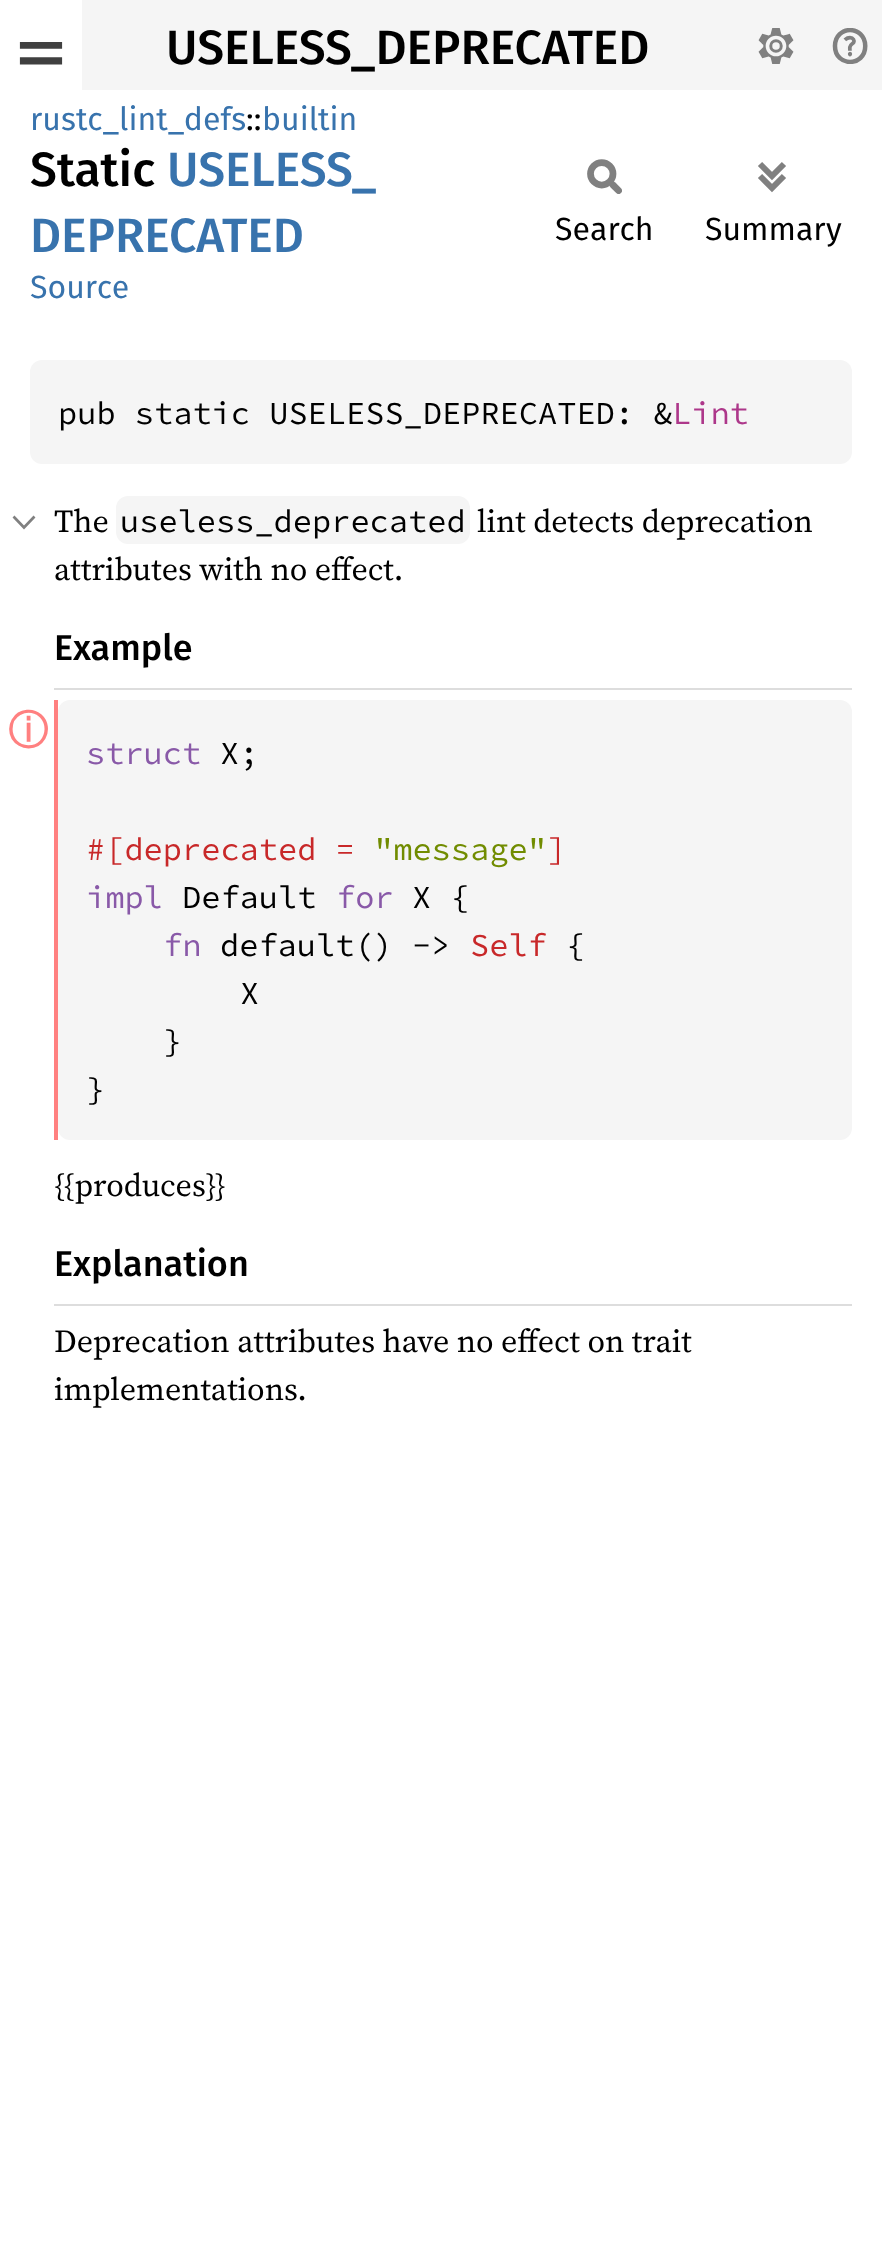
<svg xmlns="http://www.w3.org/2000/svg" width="882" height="2268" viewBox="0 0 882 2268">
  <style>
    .t1 { font: 500 48px Fira Sans; fill: #000; }
    .t2 { font: 32px Fira Sans; fill: #3873ad; }
    .t3 { font: 32px Fira Sans; fill: #000; }
    .t4 { font: 500 48px Fira Sans; fill: #3873ad; }
    .t5 { font: 32px Source Code Pro; fill: #000; }
    .t6 { font: 32px Source Code Pro; fill: #ad378a; }
    .t7 { font: 32px 'Source Serif 4'; fill: #000; }
    .t8 { font: 500 36px Fira Sans; fill: #000; }
    .t9 { font: bold 40px WenQuanYi Zen Hei; fill: #ff8080; }
    .t10 { font: 32px Source Code Pro; fill: #8959a8; }
    .t11 { font: 32px Source Code Pro; fill: #c82829; }
    .t12 { font: 32px Source Code Pro; fill: #718c00; }
  </style>
  <rect width="100%" height="100%" fill="#fff"/>
  <rect x="82" y="0" width="800" height="90" fill="#f5f5f5"/>
  <image x="19" y="42" width="44" height="23" href="images/1.png"/>
  <text x="166" y="64" class="t1">USELESS_DEPRECATED</text>
  <image x="758" y="28" width="36" height="36" href="images/2.png"/>
  <image x="832" y="28" width="36" height="36" href="images/3.png"/>
  <text x="30" y="130" class="t2">rustc_lint_defs</text>
  <text x="246" y="130" class="t3">::</text>
  <text x="262" y="130" class="t2">builtin</text>
  <text x="30" y="186" class="t1">Static</text>
  <text x="167" y="186" class="t4">USELESS_</text>
  <text x="30" y="252" class="t4">DEPRECATED</text>
  <image x="587" y="159" width="35" height="35" href="images/4.png"/>
  <text x="555" y="240" class="t3">Search</text>
  <image x="758" y="162" width="28" height="31" href="images/5.png"/>
  <text x="705" y="240" class="t3">Summary</text>
  <text x="30" y="298" class="t2">Source</text>
  <rect x="30" y="360" width="822" height="104" rx="12" fill="#f5f5f5"/>
  <text x="58" y="424" class="t5">pub static USELESS_DEPRECATED: &amp;</text>
  <text x="672" y="424" class="t6">Lint</text>
  <text x="54" y="532" class="t7">The</text>
  <rect x="116" y="496" width="354" height="48" rx="12" fill="#f5f5f5"/>
  <text x="120" y="532" class="t5">useless_deprecated</text>
  <text x="477" y="532" class="t7">lint detects deprecation</text>
  <text x="54" y="580" class="t7">attributes with no effect.</text>
  <rect x="54" y="688" width="798" height="2" fill="#ddd"/>
  <text x="54" y="660" class="t8">Example</text>
  <rect x="54" y="700" width="4" height="440" fill="#ff8080"/>
  <text x="8" y="744" class="t9">ⓘ</text>
  <rect x="58" y="700" width="794" height="440" rx="12" fill="#f5f5f5"/>
  <text x="86" y="764" class="t10">struct</text>
  <text x="220" y="764" class="t5">X;</text>
  <text x="86" y="860" class="t11">#[deprecated =</text>
  <text x="374" y="860" class="t12">"message"</text>
  <text x="547" y="860" class="t11">]</text>
  <text x="86" y="908" class="t10">impl</text>
  <text x="182" y="908" class="t5">Default</text>
  <text x="336" y="908" class="t10">for</text>
  <text x="412" y="908" class="t5">X {</text>
  <text x="163" y="956" class="t10">fn</text>
  <text x="220" y="956" class="t5">default() -&gt;</text>
  <text x="470" y="956" class="t11">Self</text>
  <text x="566" y="956" class="t5">{</text>
  <text x="240" y="1004" class="t5">X</text>
  <text x="163" y="1052" class="t5">}</text>
  <text x="86" y="1100" class="t5">}</text>
  <text x="54" y="1196" class="t7">{{produces}}</text>
  <rect x="54" y="1304" width="798" height="2" fill="#ddd"/>
  <text x="54" y="1276" class="t8">Explanation</text>
  <text x="54" y="1352" class="t7">Deprecation attributes have no effect on trait</text>
  <text x="54" y="1400" class="t7">implementations.</text>
  <path d="M13.5 516.5L24 527.5L34.5 516.5" fill="none" stroke="#808080" stroke-width="2.7"/>
</svg>
